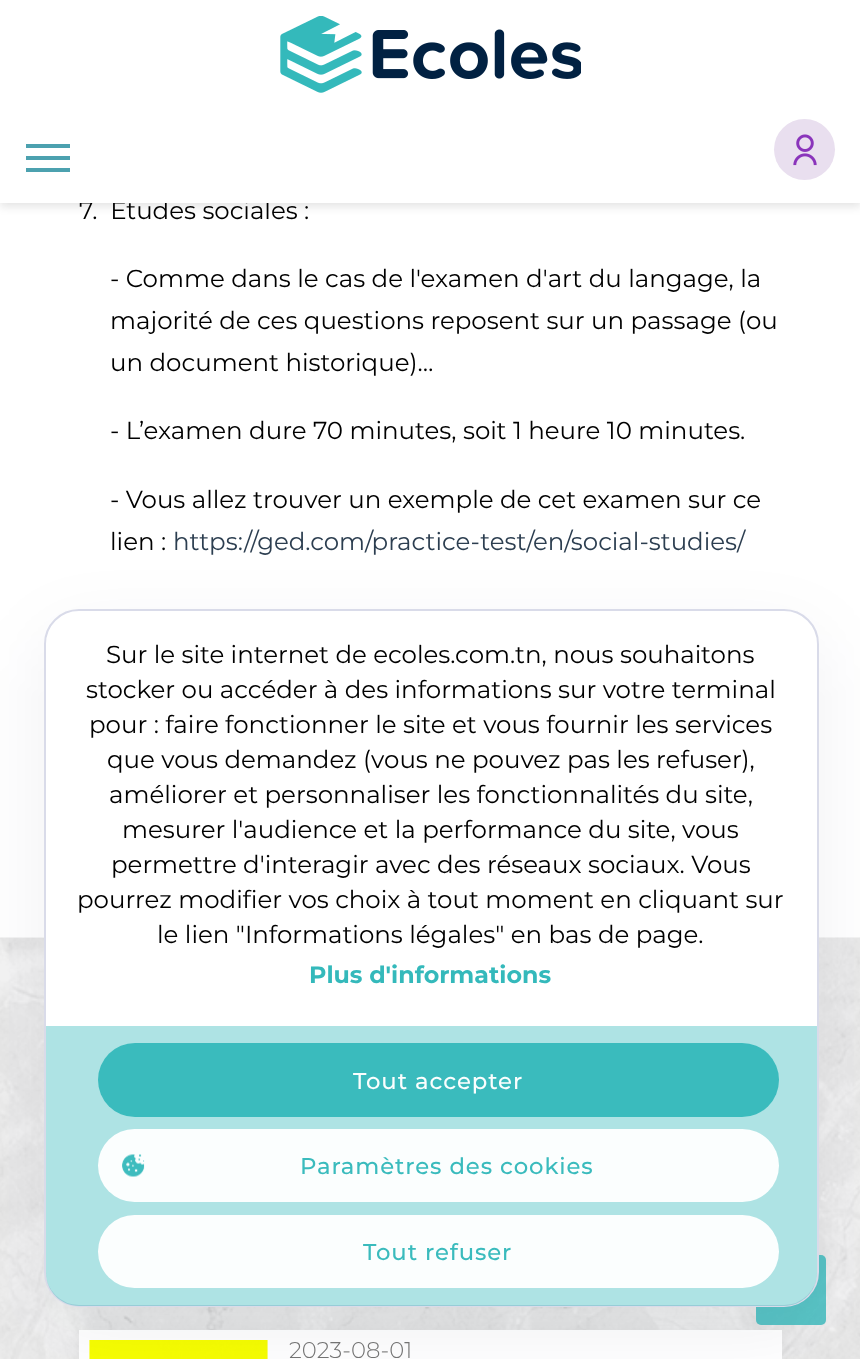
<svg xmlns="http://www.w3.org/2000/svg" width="860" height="1359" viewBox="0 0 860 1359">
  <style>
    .t1 { font: 24.5px Montserrat; fill: #000; }
    .t2 { font: 24.5px Montserrat; fill: #2c3e50; }
    .t3 { font: bold 23.75px Montserrat; fill: #34b9bb; }
    .t4 { font: 500 22.75px Montserrat; letter-spacing: 0.9px; fill: #fbfefe; }
    .t5 { font: 500 22.75px Montserrat; letter-spacing: 0.9px; fill: #3abbbd; }
    .t6 { font: 300 22.75px Montserrat; fill: #737373; }
  </style>
  <rect width="100%" height="100%" fill="#fff"/>
  <rect x="0" y="-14" width="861" height="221" fill="#0000001a" filter="blur(4.5px)"/>
  <text x="79" y="219" class="t1" xml:space="preserve">7.  Études sociales :</text>
  <rect x="0" y="0" width="860" height="203" fill="#fff"/>
  <image x="280" y="16" width="301" height="77" href="images/1.png"/>
  <rect x="26" y="144" width="44" height="4" fill="#4ca1af"/>
  <rect x="26" y="156" width="44" height="4" fill="#4ca1af"/>
  <rect x="26" y="168" width="44" height="4" fill="#4ca1af"/>
  <circle cx="804.5" cy="149.5" r="30.5" fill="#e9dfef"/>
  <image x="793" y="134" width="24" height="32" href="images/2.png"/>
  <text x="110" y="287" class="t1">- Comme dans le cas de l'examen d'art du langage, la</text>
  <text x="110" y="329" class="t1">majorité de ces questions reposent sur un passage (ou</text>
  <text x="110" y="371" class="t1">un document historique)…</text>
  <text x="110" y="439" class="t1">- L’examen dure 70 minutes, soit 1 heure 10 minutes.</text>
  <text x="110" y="508" class="t1">- Vous allez trouver un exemple de cet examen sur ce</text>
  <text x="110" y="550" class="t1">lien :</text>
  <text x="173" y="550" class="t2">https://ged.com/practice-test/en/social-studies/</text>
  <image x="0" y="937" width="860" height="422" href="images/4.png"/>
  <rect x="79" y="1342" width="703" height="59" fill="#00000017" filter="blur(14px)"/>
  <rect x="756" y="1255" width="70" height="70" rx="5" fill="#34b9bbcc"/>
  <rect x="79" y="1330" width="703" height="29" fill="#fff"/>
  <image x="89" y="1340" width="179" height="19" href="images/5.png"/>
  <rect x="44" y="634" width="775" height="698" rx="35" fill="#080f340f" filter="blur(37px)"/>
  <rect x="45" y="610" width="773" height="696" rx="34" fill="#fff" stroke="#d9dbe9" stroke-width="2"/>
  <text x="106" y="663" class="t1">Sur le site internet de ecoles.com.tn, nous souhaitons</text>
  <text x="86" y="698" class="t1">stocker ou accéder à des informations sur votre terminal</text>
  <text x="89" y="733" class="t1">pour : faire fonctionner le site et vous fournir les services</text>
  <text x="107" y="768" class="t1">que vous demandez (vous ne pouvez pas les refuser),</text>
  <text x="109" y="803" class="t1">améliorer et personnaliser les fonctionnalités du site,</text>
  <text x="122" y="838" class="t1">mesurer l'audience et la performance du site, vous</text>
  <text x="111" y="873" class="t1">permettre d'interagir avec des réseaux sociaux. Vous</text>
  <text x="77" y="908" class="t1">pourrez modifier vos choix à tout moment en cliquant sur</text>
  <text x="157" y="943" class="t1">le lien "Informations légales" en bas de page.</text>
  <text x="309" y="983" class="t3">Plus d'informations</text>
  <path d="M46 1026H817V1273C817 1291 802 1306 784 1306H79C61 1306 46 1291 46 1273Z" fill="#34b9bb66"/>
  <rect x="98" y="1043" width="681" height="74" rx="37" fill="#3abbbd"/>
  <text x="353" y="1089" class="t4">Tout accepter</text>
  <rect x="98" y="1129" width="681" height="73" rx="36.5" fill="#fbfefe"/>
  <image x="122" y="1154" width="23" height="23" href="images/3.png"/>
  <text x="300" y="1174" class="t5">Paramètres des cookies</text>
  <rect x="98" y="1215" width="681" height="73" rx="36.5" fill="#fbfefe"/>
  <text x="363" y="1260" class="t5">Tout refuser</text>
  <text x="289" y="1358" class="t6">2023-08-01</text>
</svg>
